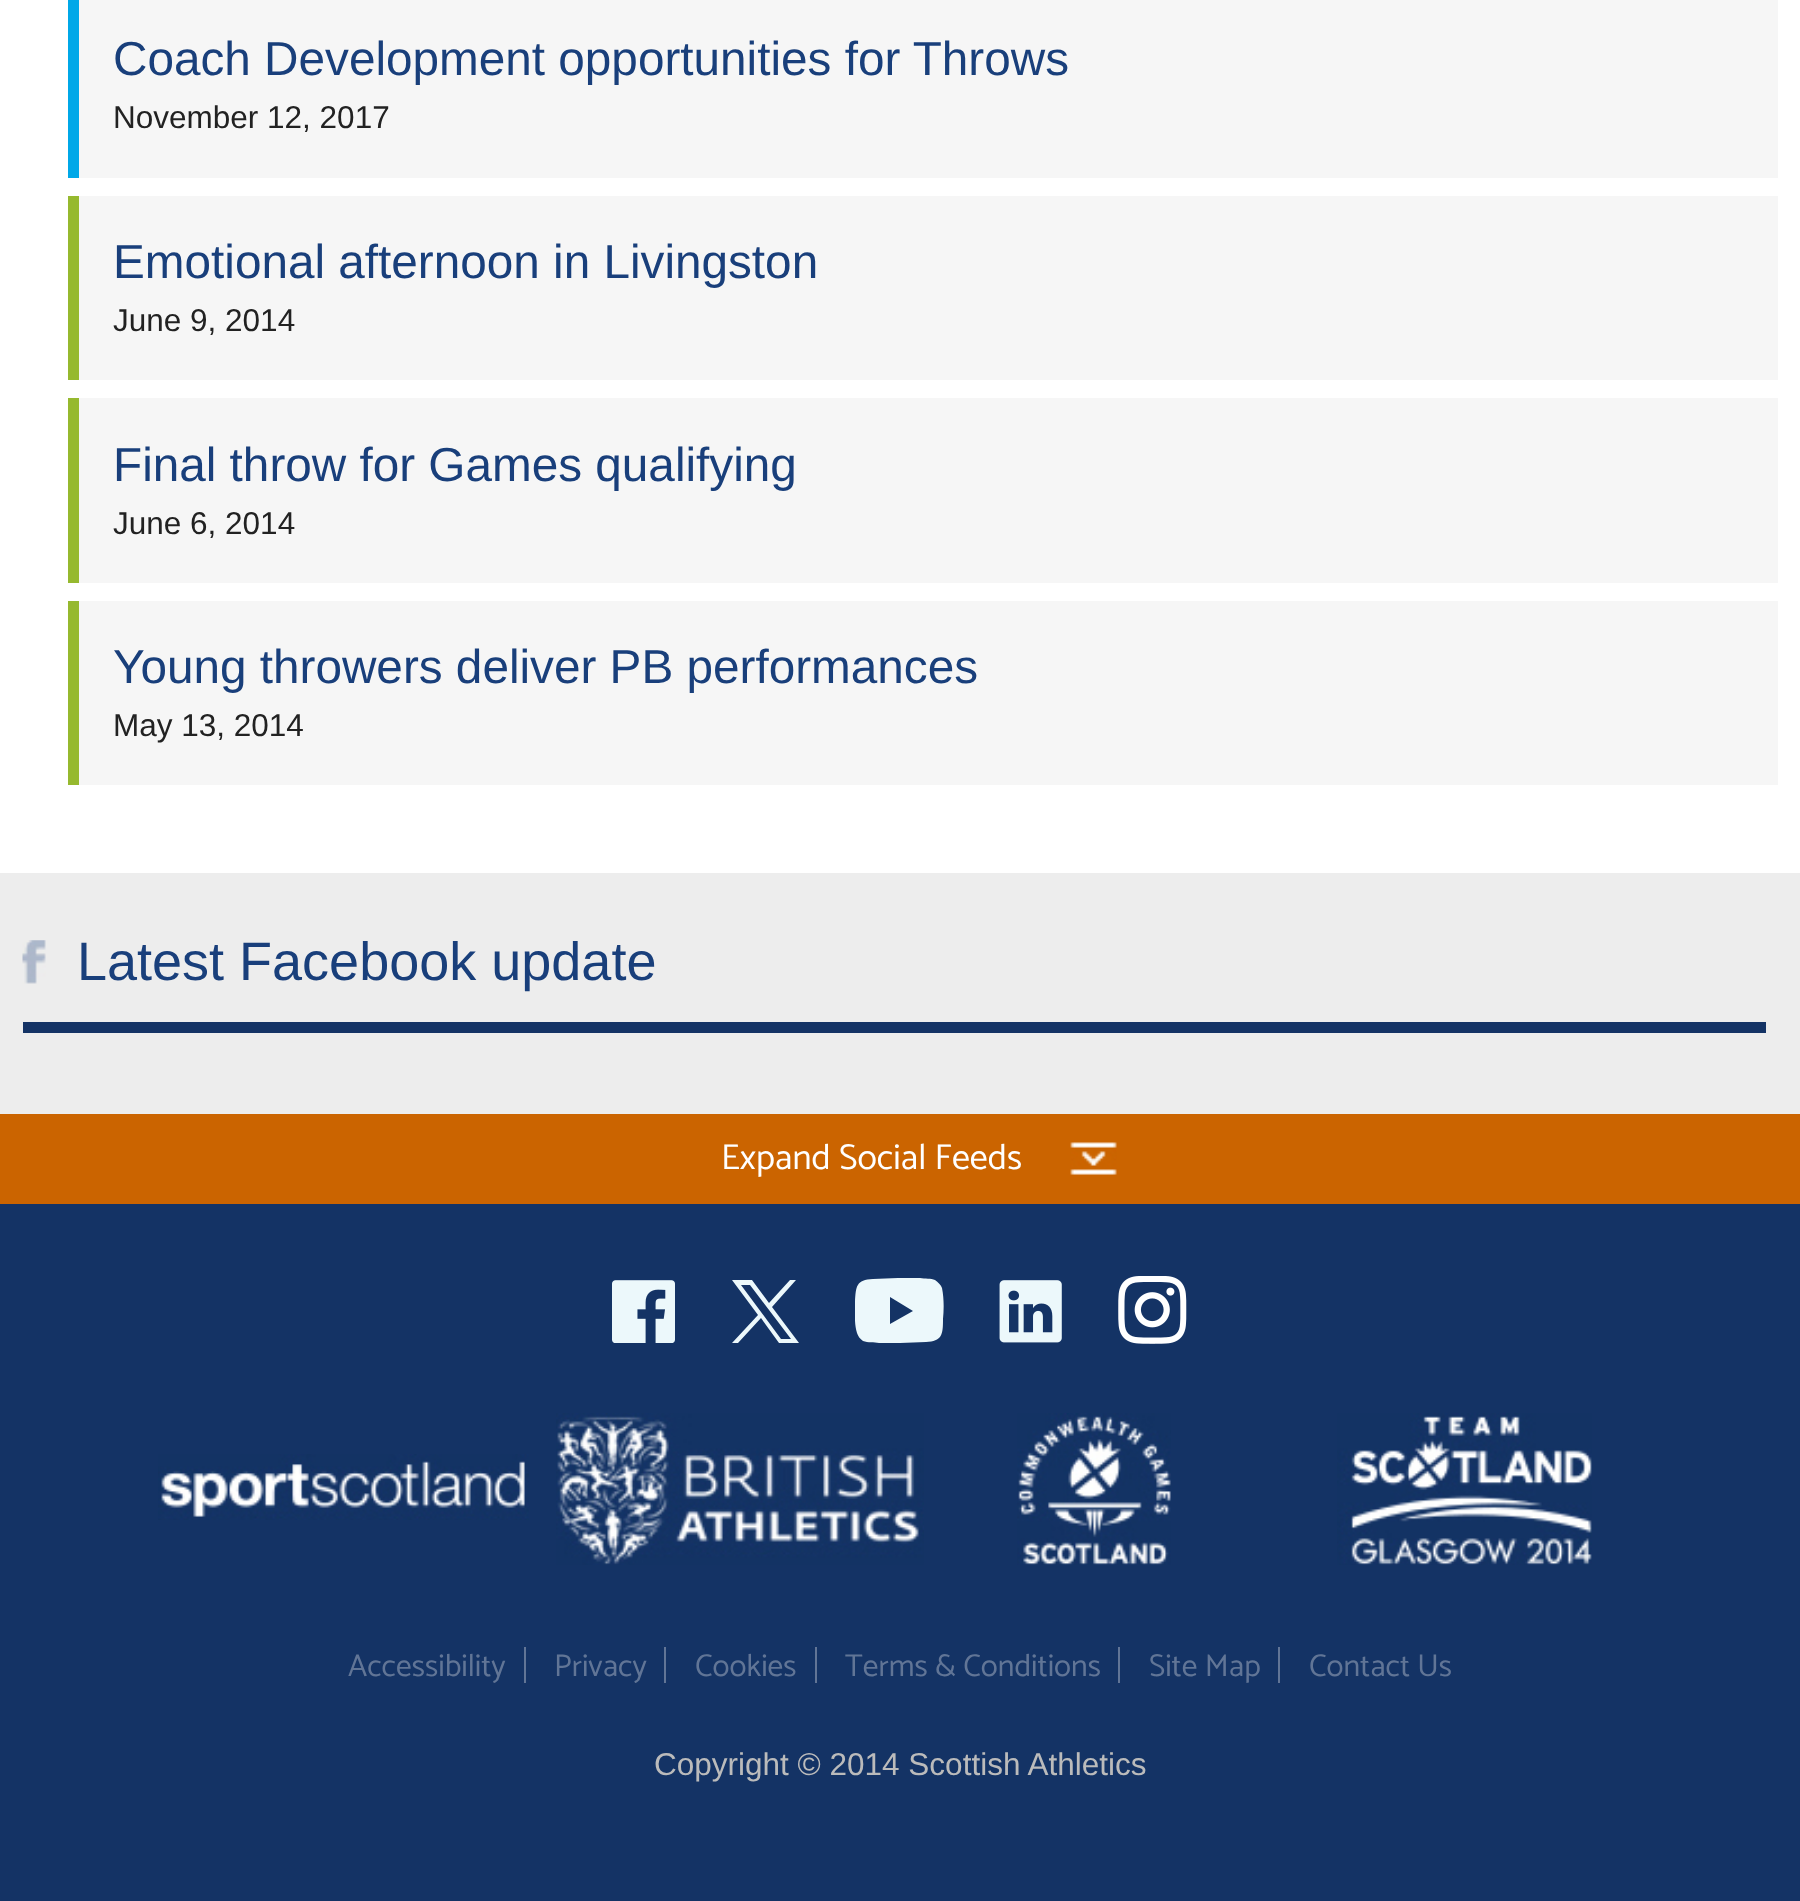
<svg xmlns="http://www.w3.org/2000/svg" width="1800" height="1901" viewBox="0 0 1800 1901">
  <style>
    .t1 { font: 47.7px Liberation Sans; fill: #193f7b; }
    .t2 { font: 31.5px Liberation Sans; fill: #222; }
    .t3 { font: 54px Liberation Sans; fill: #193f7b; }
    .t4 { font: 36px Catamaran; fill: #fff; }
    .t5 { font: 31.5px Catamaran; fill: #617596; }
    .t6 { font: 31.5px Liberation Sans; fill: #bbb; }
  </style>
  <defs>
    <clipPath id="clip1"><rect x="855" y="1276" width="90" height="67"/></clipPath>
  </defs>
  <rect width="100%" height="100%" fill="#fff"/>
  <rect x="79" y="0" width="1699" height="178" fill="#f6f6f6"/>
  <rect x="68" y="0" width="11" height="178" fill="#00a8e8"/>
  <text x="113" y="75" class="t1">Coach Development opportunities for Throws</text>
  <text x="113" y="128" class="t2">November 12, 2017</text>
  <rect x="79" y="196" width="1699" height="184" fill="#f6f6f6"/>
  <rect x="68" y="196" width="11" height="184" fill="#96b92f"/>
  <text x="113" y="278" class="t1">Emotional afternoon in Livingston</text>
  <text x="113" y="331" class="t2">June 9, 2014</text>
  <rect x="79" y="398" width="1699" height="185" fill="#f6f6f6"/>
  <rect x="68" y="398" width="11" height="185" fill="#96b92f"/>
  <text x="113" y="481" class="t1">Final throw for Games qualifying</text>
  <text x="113" y="534" class="t2">June 6, 2014</text>
  <rect x="79" y="601" width="1699" height="184" fill="#f6f6f6"/>
  <rect x="68" y="601" width="11" height="184" fill="#96b92f"/>
  <text x="113" y="683" class="t1">Young throwers deliver PB performances</text>
  <text x="113" y="736" class="t2">May 13, 2014</text>
  <rect x="0" y="873" width="1800" height="241" fill="#ededed"/>
  <image x="22" y="940" width="24" height="44" href="images/1.png"/>
  <rect x="23" y="1022" width="1743" height="11" fill="#143365"/>
  <text x="77" y="980" class="t3">Latest Facebook update</text>
  <rect x="0" y="1114" width="1800" height="90" fill="#cb6400"/>
  <image x="1070" y="1142" width="47" height="33" href="images/2.png"/>
  <text x="721" y="1169" class="t4">Expand Social Feeds</text>
  <rect x="0" y="1204" width="1800" height="697" fill="#143365"/>
  <image x="612" y="1280" width="63" height="63" href="images/3.png"/>
  <path d="M732 1280L758 1315L732 1343H738L761 1318L779 1343H799L772 1307L796 1280H790L769 1303L752 1280ZM741 1285H750L791 1339H781Z" fill="#ecf8fb"/>
  <g clip-path="url(#clip1)">
    <path d="M942 1288C941 1285 938 1282 935 1280C931 1278 925 1279 920 1278H898L873 1279C856 1280 856 1286 855 1302C855 1312 854 1323 857 1333C858 1336 860 1339 863 1341C868 1343 874 1342 879 1343H900L926 1342C942 1341 943 1335 943 1319C944 1309 944 1298 942 1288ZM890 1324V1297L913 1311Z" fill="#ecf8fb"/>
  </g>
  <image x="999" y="1280" width="63" height="63" href="images/4.png"/>
  <image x="1118" y="1276" width="69" height="68" href="images/5.png"/>
  <image x="158" y="1454" width="371" height="66" href="images/6.png"/>
  <image x="556" y="1413" width="368" height="152" href="images/7.png"/>
  <image x="1017" y="1413" width="154" height="152" href="images/8.png"/>
  <image x="1337" y="1413" width="255" height="152" href="images/9.png"/>
  <text x="348" y="1676" class="t5">Accessibility</text>
  <rect x="524" y="1647" width="2" height="36" fill="#617596"/>
  <text x="554" y="1676" class="t5">Privacy</text>
  <rect x="664" y="1647" width="2" height="36" fill="#617596"/>
  <text x="695" y="1676" class="t5">Cookies</text>
  <rect x="815" y="1647" width="2" height="36" fill="#617596"/>
  <text x="845" y="1676" class="t5">Terms &amp; Conditions</text>
  <rect x="1118" y="1647" width="2" height="36" fill="#617596"/>
  <text x="1149" y="1676" class="t5">Site Map</text>
  <rect x="1278" y="1647" width="2" height="36" fill="#617596"/>
  <text x="1309" y="1676" class="t5">Contact Us</text>
  <text x="654" y="1775" class="t6">Copyright © 2014 Scottish Athletics</text>
</svg>
